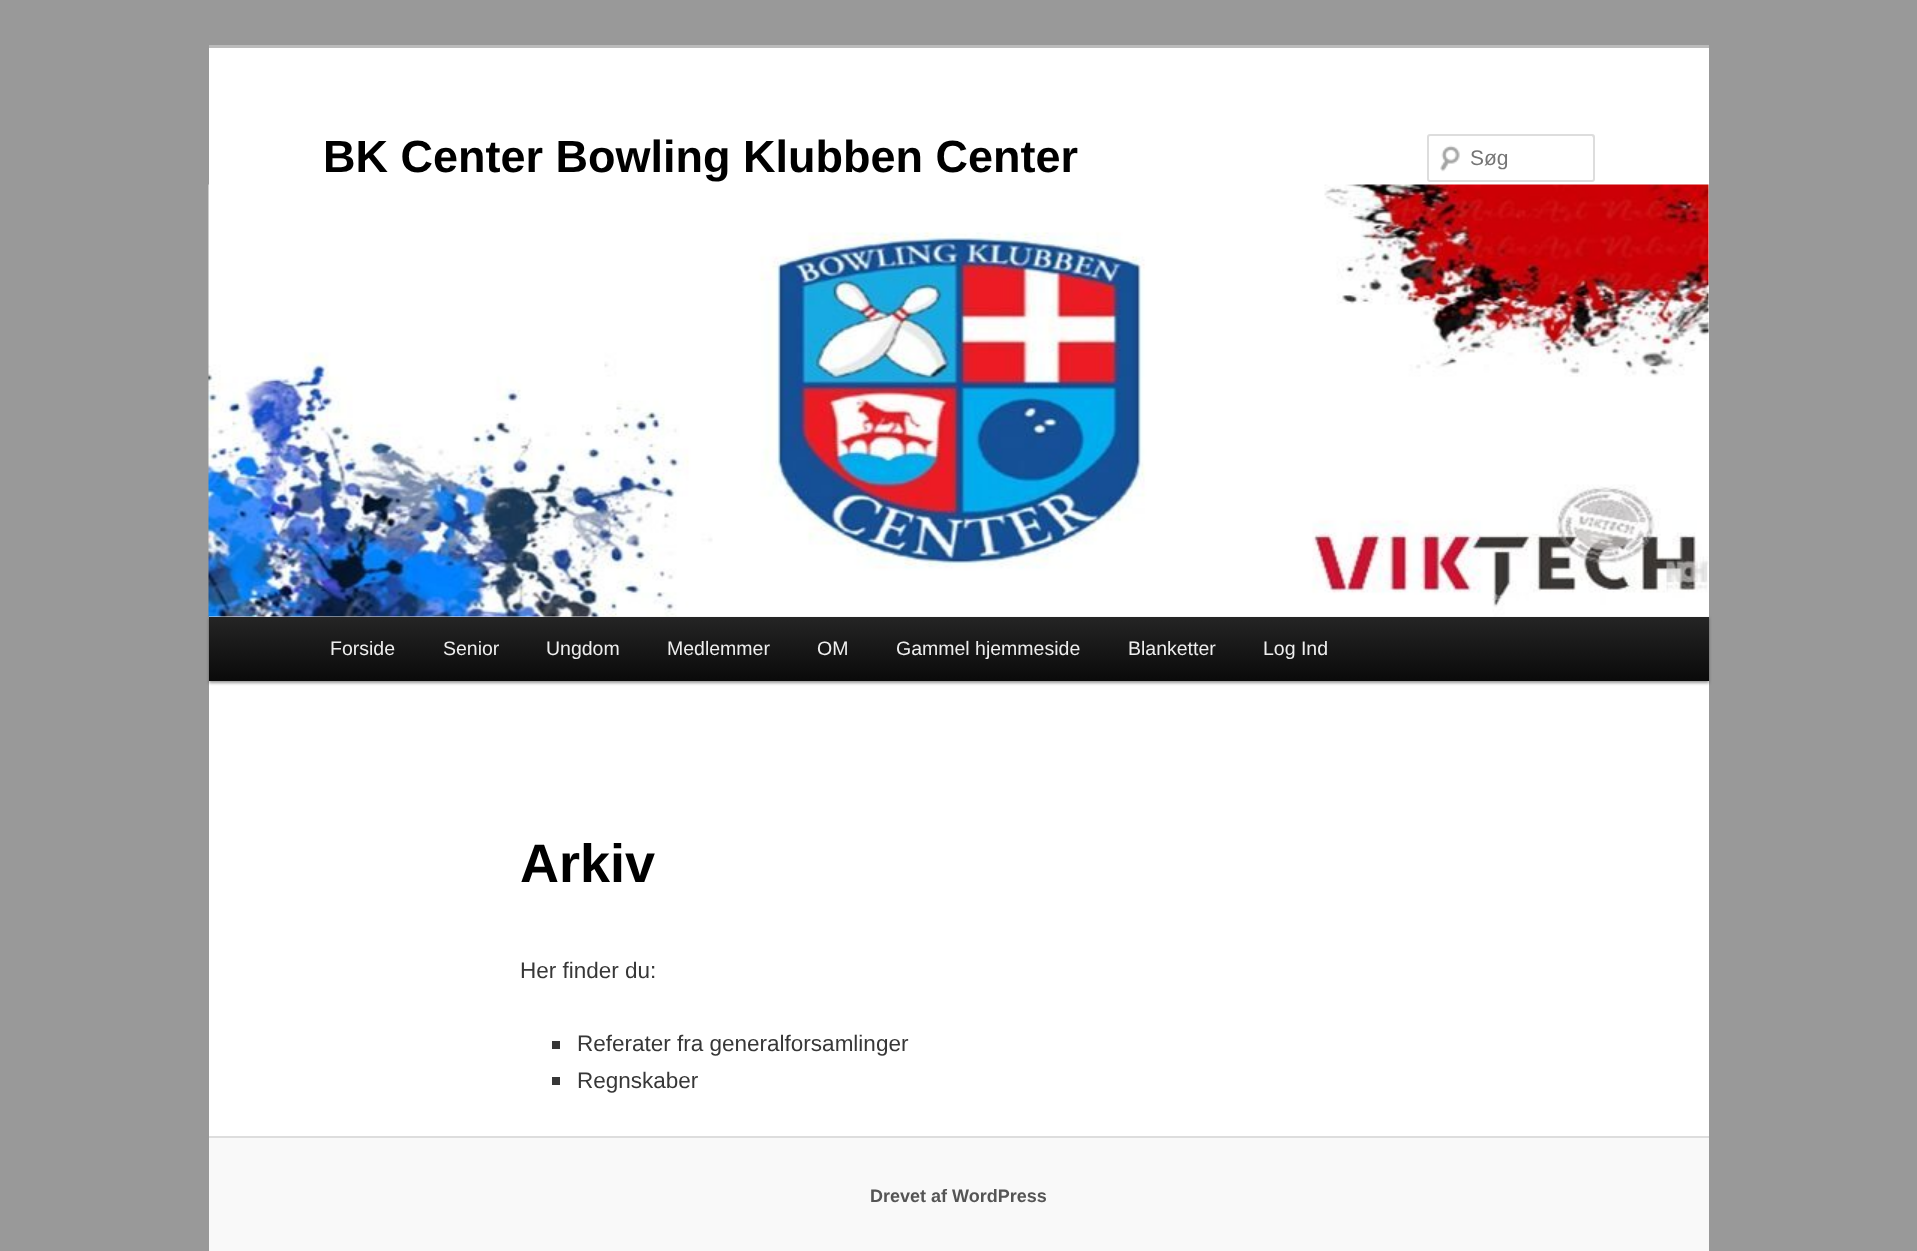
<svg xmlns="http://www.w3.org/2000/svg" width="1917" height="1251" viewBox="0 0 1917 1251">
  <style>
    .t1 { font: bold 45px Liberation Sans; fill: #000; }
    .t2 { font: 21px Liberation Sans; fill: #757575; }
    .t3 { font: 19.5px Liberation Sans; fill: #eee; }
    .t4 { font: bold 54px Liberation Sans; fill: #000; }
    .t5 { font: 22.5px Liberation Sans; fill: #373737; }
    .t6 { font: bold 18px Liberation Sans; fill: #555; }
  </style>
  <defs>
    <linearGradient id="g1" gradientUnits="userSpaceOnUse" x1="959" y1="616" x2="959" y2="681"><stop offset="0" stop-color="#252525"/><stop offset="1" stop-color="#0a0a0a"/></linearGradient>
  </defs>
  <rect width="100%" height="100%" fill="#999"/>
  <rect x="209" y="48" width="1500" height="1088" fill="#fff"/>
  <rect x="209" y="45" width="1500" height="3" fill="#bbb"/>
  <text x="323" y="172" class="t1">BK Center Bowling Klubben Center</text>
  <image x="1440" y="145" width="20" height="27" href="images/1.png"/>
  <path d="M1430 136H1592L1593 138V136C1593 136 1592 135 1592 135H1430C1429 135 1428 136 1428 136V138C1428 137 1429 136 1430 136Z" fill="#e6e6e6"/>
  <rect x="1428" y="135" width="166" height="46" rx="2" fill="none" stroke="#ddd" stroke-width="2"/>
  <text x="1470" y="165" class="t2">Søg</text>
  <rect x="209" y="618" width="1500" height="65" fill="#00000066" filter="blur(1.5px)"/>
  <image x="208" y="184" width="1501" height="433" href="images/2.png"/>
  <rect x="209" y="617" width="1500" height="64" fill="url(#g1)"/>
  <text x="330" y="655" class="t3">Forside</text>
  <text x="443" y="655" class="t3">Senior</text>
  <text x="546" y="655" class="t3">Ungdom</text>
  <text x="667" y="655" class="t3">Medlemmer</text>
  <text x="817" y="655" class="t3">OM</text>
  <text x="896" y="655" class="t3">Gammel hjemmeside</text>
  <text x="1128" y="655" class="t3">Blanketter</text>
  <text x="1263" y="655" class="t3">Log Ind</text>
  <text x="520" y="882" class="t4">Arkiv</text>
  <text x="520" y="978" class="t5">Her finder du:</text>
  <rect x="552" y="1041" width="8" height="8" fill="#373737"/>
  <text x="577" y="1051" class="t5">Referater fra generalforsamlinger</text>
  <rect x="552" y="1077" width="8" height="8" fill="#373737"/>
  <text x="577" y="1088" class="t5">Regnskaber</text>
  <rect x="209" y="1138" width="1500" height="113" fill="#f9f9f9"/>
  <rect x="209" y="1136" width="1500" height="2" fill="#ddd"/>
  <text x="870" y="1202" class="t6">Drevet af WordPress</text>
</svg>
